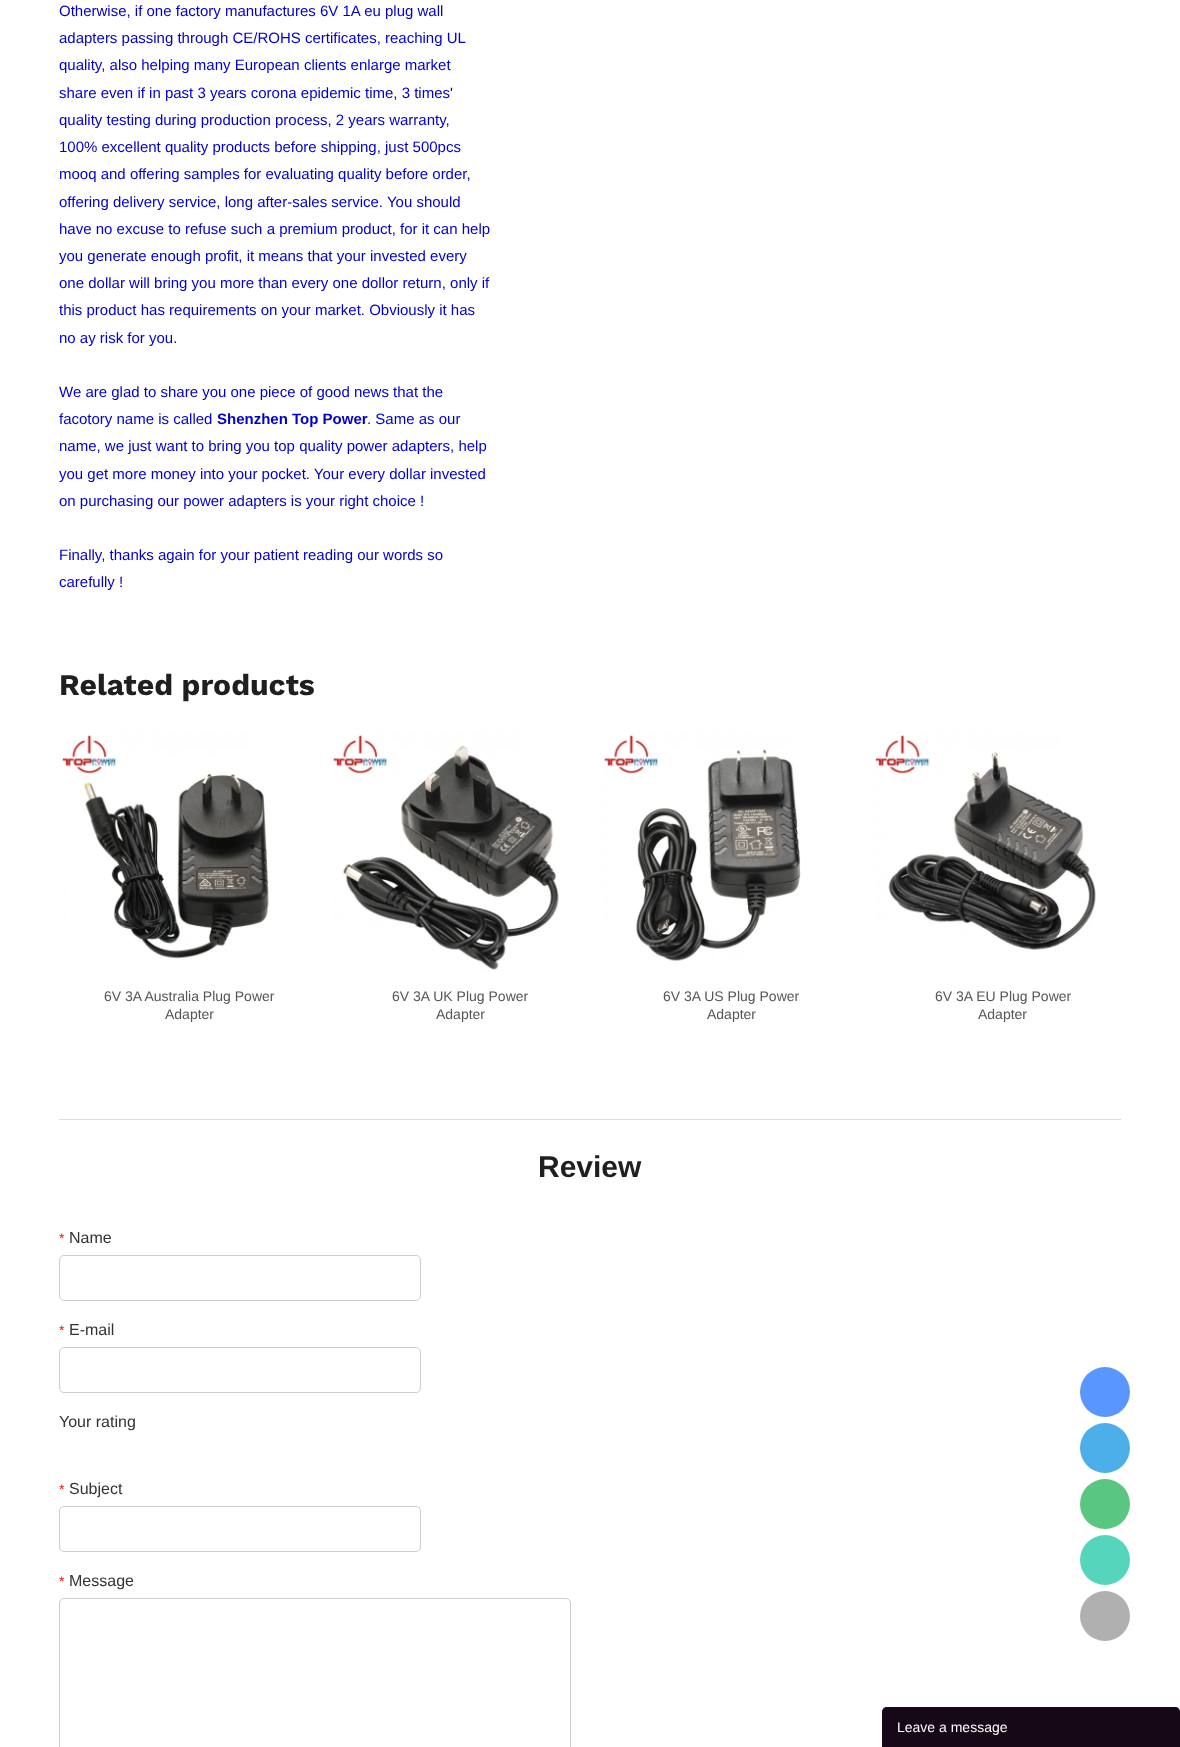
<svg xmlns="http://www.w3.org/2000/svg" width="1180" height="1747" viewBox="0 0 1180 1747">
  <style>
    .t1 { font: 15px Liberation Sans; fill: #0000cd; }
    .t2 { font: bold 15px Liberation Sans; fill: #0000cd; }
    .t3 { font: bold 30px Work Sans; fill: #1f1f1f; }
    .t4 { font: 14px Liberation Sans; fill: #555; }
    .t5 { font: bold 30px Liberation Sans; fill: #1f1f1f; }
    .t6 { font: 14px Liberation Sans; fill: #f00; }
    .t7 { font: 16px Liberation Sans; fill: #333; }
    .t8 { font: 14px Liberation Sans; fill: #fff; }
  </style>
  <rect width="100%" height="100%" fill="#fff"/>
  <text x="59" y="16" class="t1">Otherwise, if one factory manufactures 6V 1A eu plug wall</text>
  <text x="59" y="43" class="t1">adapters passing through CE/ROHS certificates, reaching UL</text>
  <text x="59" y="70" class="t1">quality, also helping many European clients enlarge market</text>
  <text x="59" y="98" class="t1">share even if in past 3 years corona epidemic time, 3 times'</text>
  <text x="59" y="125" class="t1">quality testing during production process, 2 years warranty,</text>
  <text x="59" y="152" class="t1">100% excellent quality products before shipping, just 500pcs</text>
  <text x="59" y="179" class="t1">mooq and offering samples for evaluating quality before order,</text>
  <text x="59" y="207" class="t1">offering delivery service, long after-sales service. You should</text>
  <text x="59" y="234" class="t1">have no excuse to refuse such a premium product, for it can help</text>
  <text x="59" y="261" class="t1">you generate enough profit, it means that your invested every</text>
  <text x="59" y="288" class="t1">one dollar will bring you more than every one dollor return, only if</text>
  <text x="59" y="315" class="t1">this product has requirements on your market. Obviously it has</text>
  <text x="59" y="343" class="t1">no ay risk for you.</text>
  <text x="59" y="397" class="t1">We are glad to share you one piece of good news that the</text>
  <text x="59" y="424" class="t1">facotory name is called</text>
  <text x="217" y="424" class="t2">Shenzhen Top Power</text>
  <text x="367" y="424" class="t1">. Same as our</text>
  <text x="59" y="451" class="t1">name, we just want to bring you top quality power adapters, help</text>
  <text x="59" y="479" class="t1">you get more money into your pocket. Your every dollar invested</text>
  <text x="59" y="506" class="t1">on purchasing our power adapters is your right choice !</text>
  <text x="59" y="560" class="t1">Finally, thanks again for your patient reading our words so</text>
  <text x="59" y="587" class="t1">carefully !</text>
  <text x="59" y="695" class="t3">Related products</text>
  <image x="62" y="732" width="207" height="227" href="images/1.png"/>
  <text x="104" y="1001" class="t4">6V 3A Australia Plug Power</text>
  <text x="165" y="1019" class="t4">Adapter</text>
  <image x="333" y="732" width="226" height="239" href="images/2.png"/>
  <text x="392" y="1001" class="t4">6V 3A UK Plug Power</text>
  <text x="436" y="1019" class="t4">Adapter</text>
  <image x="603" y="732" width="198" height="229" href="images/3.png"/>
  <text x="663" y="1001" class="t4">6V 3A US Plug Power</text>
  <text x="707" y="1019" class="t4">Adapter</text>
  <image x="875" y="732" width="221" height="218" href="images/4.png"/>
  <text x="935" y="1001" class="t4">6V 3A EU Plug Power</text>
  <text x="978" y="1019" class="t4">Adapter</text>
  <rect x="59" y="1119" width="1062" height="1" fill="#ddd"/>
  <text x="538" y="1177" class="t5">Review</text>
  <text x="59" y="1243" class="t6">*</text>
  <text x="69" y="1243" class="t7">Name</text>
  <rect x="59.5" y="1255.5" width="361" height="45" rx="4.5" fill="none" stroke="#cbcecd"/>
  <text x="59" y="1335" class="t6">*</text>
  <text x="69" y="1335" class="t7">E-mail</text>
  <rect x="59.5" y="1347.5" width="361" height="45" rx="4.5" fill="none" stroke="#cbcecd"/>
  <text x="59" y="1427" class="t7">Your rating</text>
  <text x="59" y="1494" class="t6">*</text>
  <text x="69" y="1494" class="t7">Subject</text>
  <rect x="59.5" y="1506.5" width="361" height="45" rx="4.5" fill="none" stroke="#cbcecd"/>
  <text x="59" y="1586" class="t6">*</text>
  <text x="69" y="1586" class="t7">Message</text>
  <rect x="59.5" y="1598.5" width="511" height="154" rx="4.5" fill="none" stroke="#cbcecd"/>
  <circle cx="1105" cy="1392" r="25" fill="#5996ff"/>
  <circle cx="1105" cy="1448" r="25" fill="#4cafe9"/>
  <circle cx="1105" cy="1504" r="25" fill="#59c682"/>
  <circle cx="1105" cy="1560" r="25" fill="#55d5bb"/>
  <circle cx="1105" cy="1616" r="25" fill="#b0b0b0"/>
  <path d="M887 1707H1175C1178 1707 1180 1709 1180 1712V1747H882V1712C882 1709 884 1707 887 1707Z" fill="#160817"/>
  <text x="897" y="1732" class="t8">Leave a message</text>
</svg>
